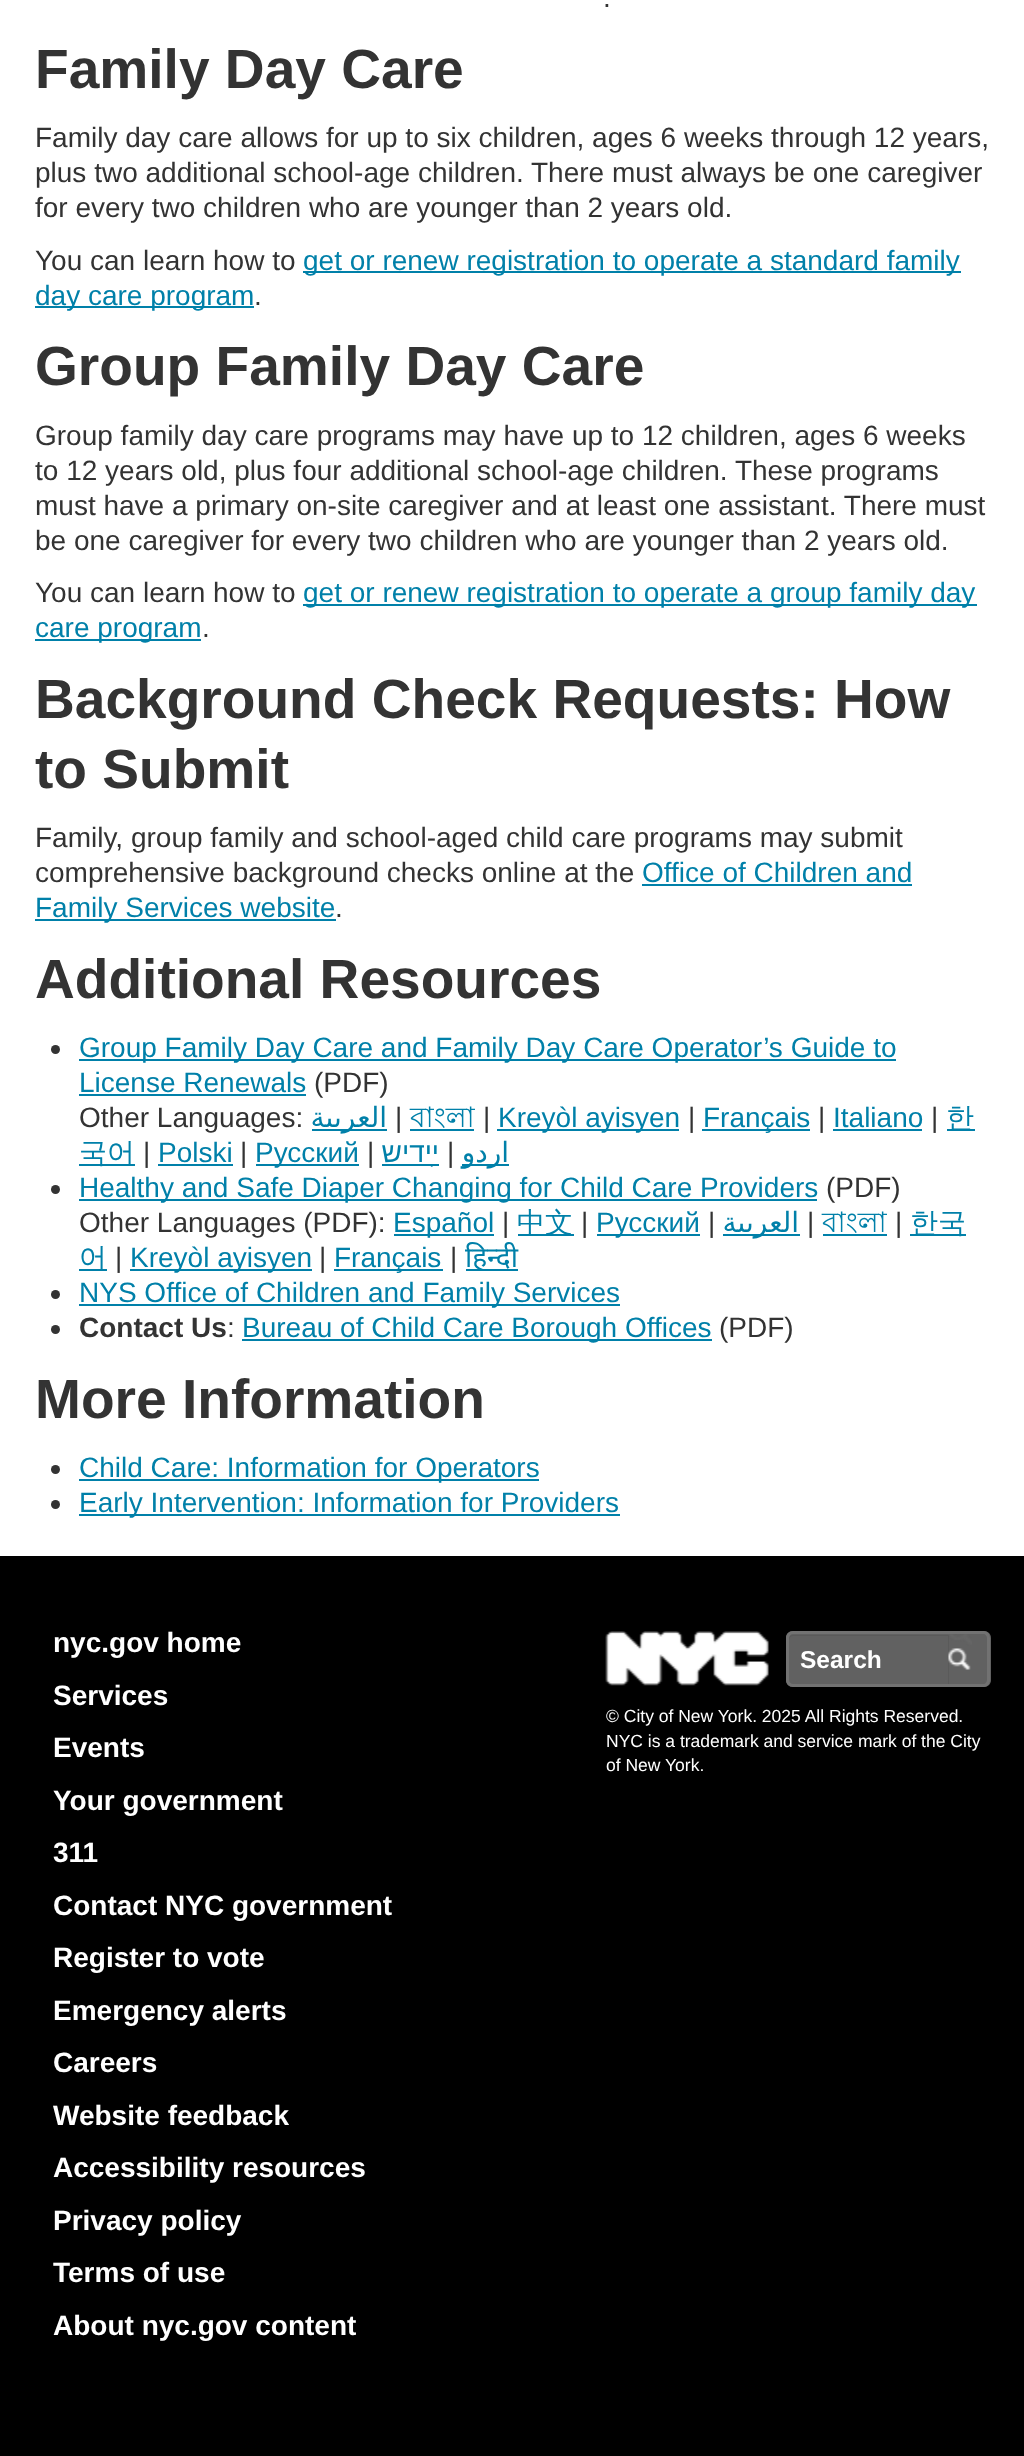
<svg xmlns="http://www.w3.org/2000/svg" width="1024" height="2456" viewBox="0 0 1024 2456">
  <style>
    .t1 { font: 28px Liberation Sans; fill: #333; }
    .t2 { font: bold 55.1px Liberation Sans; fill: #333; }
    .t3 { font: 28px Liberation Sans; fill: #0080a9; }
    .t4 { font: 28px DejaVu Sans; direction: rtl; fill: #0080a9; }
    .t5 { font: 28px Lohit Bengali; fill: #0080a9; }
    .t6 { font: 500 28px WenQuanYi Zen Hei; fill: #0080a9; }
    .t7 { font: 28px Liberation Sans; direction: rtl; fill: #0080a9; }
    .t8 { font: 28px Noto Sans; fill: #0080a9; }
    .t9 { font: bold 28px Liberation Sans; fill: #333; }
    .t10 { font: bold 28px Liberation Sans; fill: #fff; }
    .t11 { font: bold 24.5px Liberation Sans; fill: #fff; }
    .t12 { font: 17.5px Liberation Sans; fill: #fff; }
  </style>
  <rect width="100%" height="100%" fill="#fff"/>
  <text x="603" y="7" class="t1">.</text>
  <text x="35" y="88" class="t2">Family Day Care</text>
  <text x="35" y="147" class="t1">Family day care allows for up to six children, ages 6 weeks through 12 years,</text>
  <text x="35" y="182" class="t1">plus two additional school-age children. There must always be one caregiver</text>
  <text x="35" y="217" class="t1">for every two children who are younger than 2 years old.</text>
  <text x="35" y="270" class="t1">You can learn how to</text>
  <rect x="303" y="271" width="658" height="2" fill="#0080a9"/>
  <text x="303" y="270" class="t3">get or renew registration to operate a standard family</text>
  <rect x="35" y="306" width="219" height="2" fill="#0080a9"/>
  <text x="35" y="305" class="t3">day care program</text>
  <text x="254" y="305" class="t1">.</text>
  <text x="35" y="385" class="t2">Group Family Day Care</text>
  <text x="35" y="445" class="t1">Group family day care programs may have up to 12 children, ages 6 weeks</text>
  <text x="35" y="480" class="t1">to 12 years old, plus four additional school-age children. These programs</text>
  <text x="35" y="515" class="t1">must have a primary on-site caregiver and at least one assistant. There must</text>
  <text x="35" y="550" class="t1">be one caregiver for every two children who are younger than 2 years old.</text>
  <text x="35" y="602" class="t1">You can learn how to</text>
  <rect x="303" y="604" width="674" height="2" fill="#0080a9"/>
  <text x="303" y="602" class="t3">get or renew registration to operate a group family day</text>
  <rect x="35" y="639" width="166" height="2" fill="#0080a9"/>
  <text x="35" y="637" class="t3">care program</text>
  <text x="202" y="637" class="t1">.</text>
  <text x="35" y="718" class="t2">Background Check Requests: How</text>
  <text x="35" y="788" class="t2">to Submit</text>
  <text x="35" y="847" class="t1">Family, group family and school-aged child care programs may submit</text>
  <text x="35" y="882" class="t1">comprehensive background checks online at the</text>
  <text x="642" y="882" class="t3">Office of Children and</text>
  <rect x="642" y="884" width="270" height="2" fill="#0080a9"/>
  <rect x="35" y="919" width="301" height="2" fill="#0080a9"/>
  <text x="35" y="917" class="t3">Family Services website</text>
  <text x="335" y="917" class="t1">.</text>
  <text x="35" y="998" class="t2">Additional Resources</text>
  <circle cx="55.5" cy="1049.5" r="4.5" fill="#333"/>
  <rect x="79" y="1059" width="817" height="2" fill="#0080a9"/>
  <text x="79" y="1057" class="t3">Group Family Day Care and Family Day Care Operator’s Guide to</text>
  <text x="79" y="1092" class="t3">License Renewals</text>
  <rect x="79" y="1094" width="227" height="2" fill="#0080a9"/>
  <text x="314" y="1092" class="t1">(PDF)</text>
  <text x="79" y="1127" class="t1">Other Languages:</text>
  <rect x="312" y="1129" width="75" height="2" fill="#0080a9"/>
  <text x="387" y="1127" class="t4">العربية</text>
  <text x="395" y="1127" class="t1">|</text>
  <text x="410" y="1127" class="t5">বাংলা</text>
  <rect x="410" y="1129" width="64" height="2" fill="#0080a9"/>
  <text x="483" y="1127" class="t1">|</text>
  <rect x="497" y="1129" width="182" height="2" fill="#0080a9"/>
  <text x="498" y="1127" class="t3">Kreyòl ayisyen</text>
  <text x="688" y="1127" class="t1">|</text>
  <rect x="702" y="1129" width="108" height="2" fill="#0080a9"/>
  <text x="703" y="1127" class="t3">Français</text>
  <text x="818" y="1127" class="t1">|</text>
  <text x="833" y="1127" class="t3">Italiano</text>
  <rect x="833" y="1129" width="89" height="2" fill="#0080a9"/>
  <text x="931" y="1127" class="t1">|</text>
  <rect x="947" y="1129" width="28" height="2" fill="#0080a9"/>
  <text x="946" y="1127" class="t6">한</text>
  <rect x="79" y="1164" width="56" height="2" fill="#0080a9"/>
  <text x="79" y="1162" class="t6">국어</text>
  <text x="143" y="1162" class="t1">|</text>
  <text x="158" y="1162" class="t3">Polski</text>
  <rect x="158" y="1164" width="75" height="2" fill="#0080a9"/>
  <text x="240" y="1162" class="t1">|</text>
  <rect x="256" y="1164" width="103" height="2" fill="#0080a9"/>
  <text x="255" y="1162" class="t3">Русский</text>
  <text x="367" y="1162" class="t1">|</text>
  <rect x="382" y="1164" width="57" height="2" fill="#0080a9"/>
  <text x="439" y="1162" class="t7">ײִדיש</text>
  <text x="447" y="1162" class="t1">|</text>
  <rect x="462" y="1164" width="47" height="2" fill="#0080a9"/>
  <text x="509" y="1162" class="t4">اردو</text>
  <circle cx="55.5" cy="1189.5" r="4.5" fill="#333"/>
  <rect x="79" y="1199" width="738" height="2" fill="#0080a9"/>
  <text x="79" y="1197" class="t3">Healthy and Safe Diaper Changing for Child Care Providers</text>
  <text x="826" y="1197" class="t1">(PDF)</text>
  <text x="79" y="1232" class="t1">Other Languages (PDF):</text>
  <rect x="394" y="1234" width="100" height="2" fill="#0080a9"/>
  <text x="393" y="1232" class="t3">Español</text>
  <text x="502" y="1232" class="t1">|</text>
  <rect x="518" y="1234" width="56" height="2" fill="#0080a9"/>
  <text x="517" y="1232" class="t6">中文</text>
  <text x="581" y="1232" class="t1">|</text>
  <rect x="597" y="1234" width="103" height="2" fill="#0080a9"/>
  <text x="596" y="1232" class="t3">Русский</text>
  <text x="708" y="1232" class="t1">|</text>
  <rect x="723" y="1234" width="77" height="2" fill="#0080a9"/>
  <text x="799" y="1232" class="t4">العربية</text>
  <text x="807" y="1232" class="t1">|</text>
  <text x="822" y="1232" class="t5">বাংলা</text>
  <rect x="823" y="1234" width="64" height="2" fill="#0080a9"/>
  <text x="895" y="1232" class="t1">|</text>
  <rect x="910" y="1234" width="56" height="2" fill="#0080a9"/>
  <text x="910" y="1232" class="t6">한국</text>
  <rect x="79" y="1269" width="28" height="2" fill="#0080a9"/>
  <text x="79" y="1267" class="t6">어</text>
  <text x="115" y="1267" class="t1">|</text>
  <rect x="130" y="1269" width="182" height="2" fill="#0080a9"/>
  <text x="130" y="1267" class="t3">Kreyòl ayisyen</text>
  <text x="319" y="1267" class="t1">|</text>
  <rect x="334" y="1269" width="109" height="2" fill="#0080a9"/>
  <text x="334" y="1267" class="t3">Français</text>
  <text x="450" y="1267" class="t1">|</text>
  <rect x="466" y="1269" width="52" height="2" fill="#0080a9"/>
  <text x="465" y="1267" class="t8">हिन्दी</text>
  <circle cx="55.5" cy="1294.5" r="4.5" fill="#333"/>
  <rect x="79" y="1304" width="541" height="2" fill="#0080a9"/>
  <text x="79" y="1302" class="t3">NYS Office of Children and Family Services</text>
  <circle cx="55.5" cy="1329.5" r="4.5" fill="#333"/>
  <text x="79" y="1337" class="t9">Contact Us</text>
  <text x="227" y="1337" class="t1">:</text>
  <rect x="242" y="1339" width="470" height="2" fill="#0080a9"/>
  <text x="242" y="1337" class="t3">Bureau of Child Care Borough Offices</text>
  <text x="719" y="1337" class="t1">(PDF)</text>
  <text x="35" y="1418" class="t2">More Information</text>
  <circle cx="55.5" cy="1469.5" r="4.5" fill="#333"/>
  <rect x="79" y="1479" width="460" height="2" fill="#0080a9"/>
  <text x="79" y="1477" class="t3">Child Care: Information for Operators</text>
  <circle cx="55.5" cy="1504.5" r="4.5" fill="#333"/>
  <rect x="79" y="1514" width="541" height="2" fill="#0080a9"/>
  <text x="79" y="1512" class="t3">Early Intervention: Information for Providers</text>
  <rect x="0" y="1556" width="1024" height="900" fill="#000"/>
  <text x="53" y="1652" class="t10">nyc.gov home</text>
  <text x="53" y="1705" class="t10">Services</text>
  <text x="53" y="1757" class="t10">Events</text>
  <text x="53" y="1810" class="t10">Your government</text>
  <text x="53" y="1862" class="t10">311</text>
  <text x="53" y="1915" class="t10">Contact NYC government</text>
  <text x="53" y="1967" class="t10">Register to vote</text>
  <text x="53" y="2020" class="t10">Emergency alerts</text>
  <text x="53" y="2072" class="t10">Careers</text>
  <text x="53" y="2125" class="t10">Website feedback</text>
  <text x="53" y="2177" class="t10">Accessibility resources</text>
  <text x="53" y="2230" class="t10">Privacy policy</text>
  <text x="53" y="2282" class="t10">Terms of use</text>
  <text x="53" y="2335" class="t10">About nyc.gov content</text>
  <image x="605" y="1631" width="164" height="55" href="images/1.png"/>
  <path d="M793 1631H949V1687H793C789 1687 786 1684 786 1680V1638C786 1634 789 1631 793 1631Z" fill="#616161"/>
  <path d="M793 1636H948V1684H949V1635H793C790 1635 789 1637 789 1640C789 1638 791 1636 793 1636Z" fill="#5a5a5a"/>
  <path d="M793 1631H948V1687H793C789 1687 786 1684 786 1680V1638C786 1634 789 1631 793 1631ZM793 1634H948V1684H793C791 1684 789 1682 789 1680V1638C789 1636 791 1634 793 1634Z" fill="#727272" fill-rule="evenodd"/>
  <text x="800" y="1668" class="t11">Search</text>
  <path d="M949 1631H984C988 1631 991 1634 991 1638V1680C991 1684 988 1687 984 1687H949Z" fill="#616161"/>
  <image x="948" y="1634" width="24" height="36" href="images/2.png"/>
  <path d="M948 1631H984C987 1631 990 1634 990 1638V1680C990 1684 987 1687 984 1687H948ZM948 1634H984C985 1634 987 1636 987 1638V1680C987 1682 985 1684 984 1684H948Z" fill="#727272" fill-rule="evenodd"/>
  <text x="606" y="1722" class="t12">© City of New York. 2025 All Rights Reserved.</text>
  <text x="606" y="1747" class="t12">NYC is a trademark and service mark of the City</text>
  <text x="606" y="1771" class="t12">of New York.</text>
</svg>
